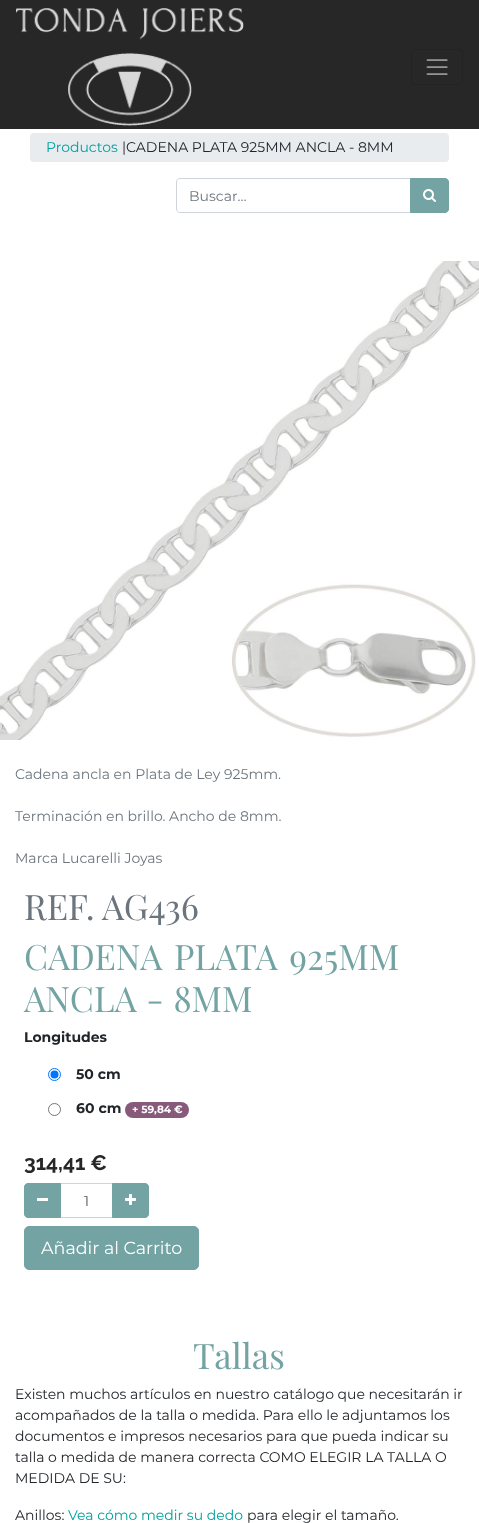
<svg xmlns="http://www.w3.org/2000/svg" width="479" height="1523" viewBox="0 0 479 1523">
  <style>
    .t1 { font: 14px Montserrat; fill: #00a09d; }
    .t2 { font: 14px Montserrat; fill: #212529; }
    .t3 { font: 14px Montserrat; fill: #6c757d; }
    .t4 { font: 35px Playfair Display; fill: #6c757d; }
    .t5 { font: 35px Playfair Display; fill: #74a3a3; }
    .t6 { font: bold 14px Montserrat; fill: #212529; }
    .t7 { font: bold 10.5px Montserrat; fill: #fff; }
    .t8 { font: bold 21px Raleway; fill: #272727; }
    .t9 { font: 14px Montserrat; fill: #495057; }
    .t10 { font: 17.5px Montserrat; fill: #fff; }
  </style>
  <rect width="100%" height="100%" fill="#fff"/>
  <rect x="0" y="0" width="479" height="129" fill="#272727"/>
  <image x="16" y="8" width="228" height="118" href="images/1.png"/>
  <rect x="411.5" y="49.5" width="51" height="35" rx="3.5" fill="none" stroke="#232323"/>
  <image x="426" y="59" width="22" height="16" href="images/2.png"/>
  <rect x="30" y="133" width="419" height="29" rx="4" fill="#e9ecef"/>
  <text x="46" y="152" class="t1">Productos</text>
  <text x="122" y="152" class="t2">|CADENA PLATA 925MM ANCLA - 8MM</text>
  <path d="M180 178.5H410.5V212.5H180C178 212.5 176.5 211 176.5 209V182C176.5 180 178 178.5 180 178.5Z" fill="none" stroke="#ced4da"/>
  <text x="189" y="201" class="t3">Buscar…</text>
  <path d="M410.5 178.5H445C447 178.5 448.5 180 448.5 182V209C448.5 211 447 212.5 445 212.5H410.5Z" fill="#74a3a3" stroke="#74a3a3"/>
  <image x="423" y="189" width="13" height="13" href="images/3.png"/>
  <image x="0" y="261" width="479" height="479" href="images/4.png"/>
  <text x="15" y="779" class="t3">Cadena ancla en Plata de Ley 925mm.</text>
  <text x="15" y="821" class="t3">Terminación en brillo. Ancho de 8mm.</text>
  <text x="15" y="863" class="t3">Marca Lucarelli Joyas</text>
  <text x="24" y="920" class="t4">REF. AG436</text>
  <text x="24" y="970" word-spacing="3" class="t5">CADENA PLATA 925MM</text>
  <text x="24" y="1012" word-spacing="1" class="t5">ANCLA - 8MM</text>
  <text x="24" y="1042" class="t6">Longitudes</text>
  <circle cx="54.5" cy="1074.5" r="6" fill="none" stroke="#0075ff"/>
  <circle cx="54.5" cy="1074.5" r="4" fill="#0075ff"/>
  <text x="76" y="1079" class="t6">50 cm</text>
  <circle cx="54.5" cy="1109.5" r="6" fill="none" stroke="#767676"/>
  <text x="76" y="1113" class="t6">60 cm</text>
  <rect x="125" y="1102" width="64" height="16" rx="8" fill="#875a7b"/>
  <text x="132" y="1113" class="t7">+ 59,84 €</text>
  <text x="24" y="1170" class="t8">314,41 €</text>
  <rect x="60.5" y="1183.5" width="52" height="34" fill="none" stroke="#ced4da"/>
  <path d="M28 1183.5H60.5V1217.5H28C26 1217.5 24.5 1216 24.5 1214V1187C24.5 1185 26 1183.5 28 1183.5Z" fill="#74a3a3" stroke="#74a3a3"/>
  <rect x="37" y="1198" width="11" height="3" fill="#fff"/>
  <text x="84" y="1206" class="t9">1</text>
  <path d="M112.5 1183.5H145C147 1183.5 148.5 1185 148.5 1187V1214C148.5 1216 147 1217.5 145 1217.5H112.5Z" fill="#74a3a3" stroke="#74a3a3"/>
  <image x="125" y="1194" width="11" height="11" href="images/5.png"/>
  <rect x="24.5" y="1226.5" width="174" height="43" rx="4.5" fill="#74a3a3" stroke="#74a3a3"/>
  <text x="41" y="1254" class="t10">Añadir al Carrito</text>
  <text x="193" y="1369" class="t5">Tallas</text>
  <text x="15" y="1399" class="t2">Existen muchos artículos en nuestro catálogo que necesitarán ir</text>
  <text x="15" y="1420" class="t2">acompañados de la talla o medida. Para ello le adjuntamos los</text>
  <text x="15" y="1441" class="t2">documentos e impresos necesarios para que pueda indicar su</text>
  <text x="15" y="1462" class="t2">talla o medida de manera correcta COMO ELEGIR LA TALLA O</text>
  <text x="15" y="1483" class="t2">MEDIDA DE SU:</text>
  <text x="15" y="1520" class="t2">Anillos:</text>
  <text x="68" y="1520" class="t1">Vea cómo medir su dedo</text>
  <text x="247" y="1520" class="t2">para elegir el tamaño.</text>
</svg>
